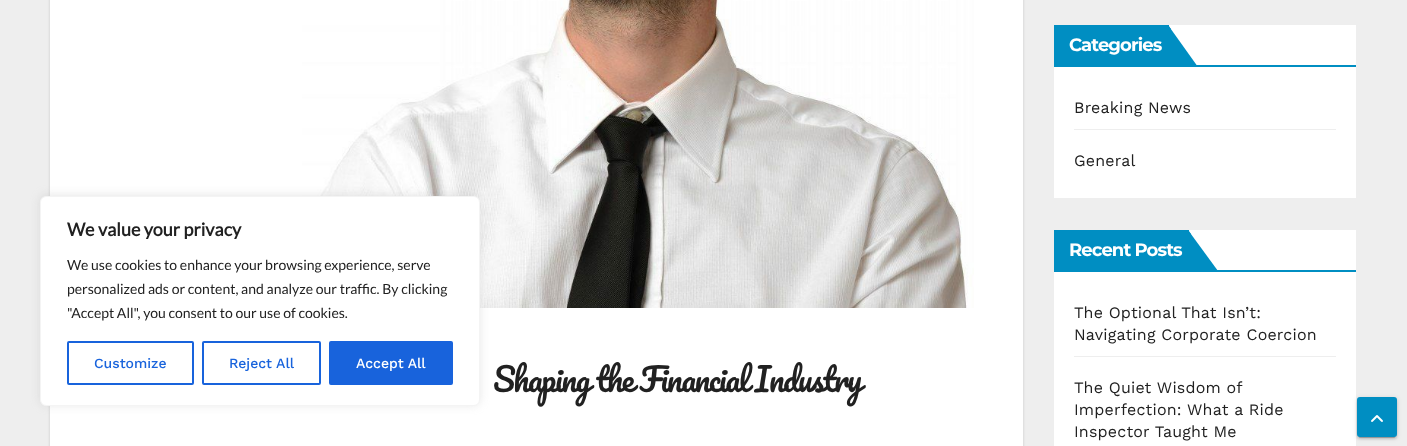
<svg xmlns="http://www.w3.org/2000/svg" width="1407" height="446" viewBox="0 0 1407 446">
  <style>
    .t1 { font: bold 18px Lato; fill: #212121; }
    .t2 { font: 14px Lato; fill: #212121; }
    .t3 { font: 500 14px Work Sans; fill: #1863dc; }
    .t4 { font: 500 14px Work Sans; fill: #fff; }
    .t5 { font: 32px Pacifico; letter-spacing: -1.6px; fill: #212121; }
    .t6 { font: bold 18px Montserrat; letter-spacing: -0.9px; fill: #fff; }
    .t7 { font: 16px Work Sans; letter-spacing: 0.2px; fill: #212121; }
  </style>
  <rect width="100%" height="100%" fill="#eee"/>
  <rect x="50" y="-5" width="973" height="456" fill="#00000026" filter="blur(1.5px)"/>
  <rect x="50" y="0" width="973" height="446" fill="#fff"/>
  <image x="302" y="0" width="672" height="308" href="images/1.png"/>
  <rect x="40" y="195" width="440" height="210" rx="6" fill="#acabab4d" filter="blur(5px)"/>
  <rect x="40.5" y="196.5" width="439" height="209" rx="5.5" fill="#fff" stroke="#f4f4f4"/>
  <text x="67" y="236" class="t1">We value your privacy</text>
  <text x="67" y="270" class="t2">We use cookies to enhance your browsing experience, serve</text>
  <text x="67" y="294" class="t2">personalized ads or content, and analyze our traffic. By clicking</text>
  <text x="67" y="318" class="t2">"Accept All", you consent to our use of cookies.</text>
  <rect x="68" y="342" width="125" height="42" rx="1" fill="none" stroke="#1863dc" stroke-width="2"/>
  <text x="94" y="368" class="t3">Customize</text>
  <rect x="203" y="342" width="117" height="42" rx="1" fill="none" stroke="#1863dc" stroke-width="2"/>
  <text x="229" y="368" class="t3">Reject All</text>
  <rect x="330" y="342" width="122" height="42" rx="1" fill="#1863dc" stroke="#1863dc" stroke-width="2"/>
  <text x="356" y="368" class="t4">Accept All</text>
  <text x="493" y="392" class="t5">Shaping the Financial Industry</text>
  <rect x="1054" y="25" width="302" height="173" fill="#fff"/>
  <rect x="1054" y="65" width="302" height="2" fill="#008ec2"/>
  <rect x="1054" y="25" width="115" height="40" fill="#008ec2"/>
  <text x="1069" y="51" class="t6">Categories</text>
  <path d="M1168 25V67H1198Z" fill="#008ec2"/>
  <path d="M1171 29V64L1168 67V25Z" fill="#008ec2"/>
  <rect x="1074" y="129" width="262" height="1" fill="#eee"/>
  <text x="1074" y="113" class="t7">Breaking News</text>
  <text x="1074" y="166" class="t7">General</text>
  <rect x="1054" y="230" width="302" height="216" fill="#fff"/>
  <rect x="1054" y="270" width="302" height="2" fill="#008ec2"/>
  <rect x="1054" y="230" width="135" height="40" fill="#008ec2"/>
  <text x="1069" y="256" class="t6">Recent Posts</text>
  <path d="M1188 230V272H1218V271Z" fill="#008ec2"/>
  <path d="M1191 234V269L1188 272V230Z" fill="#008ec2"/>
  <rect x="1074" y="356" width="262" height="1" fill="#eee"/>
  <text x="1074" y="318" class="t7">The Optional That Isn’t:</text>
  <text x="1074" y="340" class="t7">Navigating Corporate Coercion</text>
  <text x="1074" y="393" class="t7">The Quiet Wisdom of</text>
  <text x="1074" y="415" class="t7">Imperfection: What a Ride</text>
  <text x="1074" y="437" class="t7">Inspector Taught Me</text>
  <rect x="1357" y="398" width="40" height="40" rx="3" fill="#0000001f" filter="blur(2.5px)"/>
  <rect x="1359" y="402" width="36" height="36" rx="1" fill="#00000033" filter="blur(0.5px)"/>
  <rect x="1357" y="399" width="40" height="40" rx="3" fill="#00000024" filter="blur(1px)"/>
  <rect x="1358" y="398" width="38" height="38" rx="2" fill="#008ec2" stroke="#008ec2" stroke-width="2"/>
  <image x="1371" y="415" width="12" height="7" href="images/2.png"/>
</svg>
